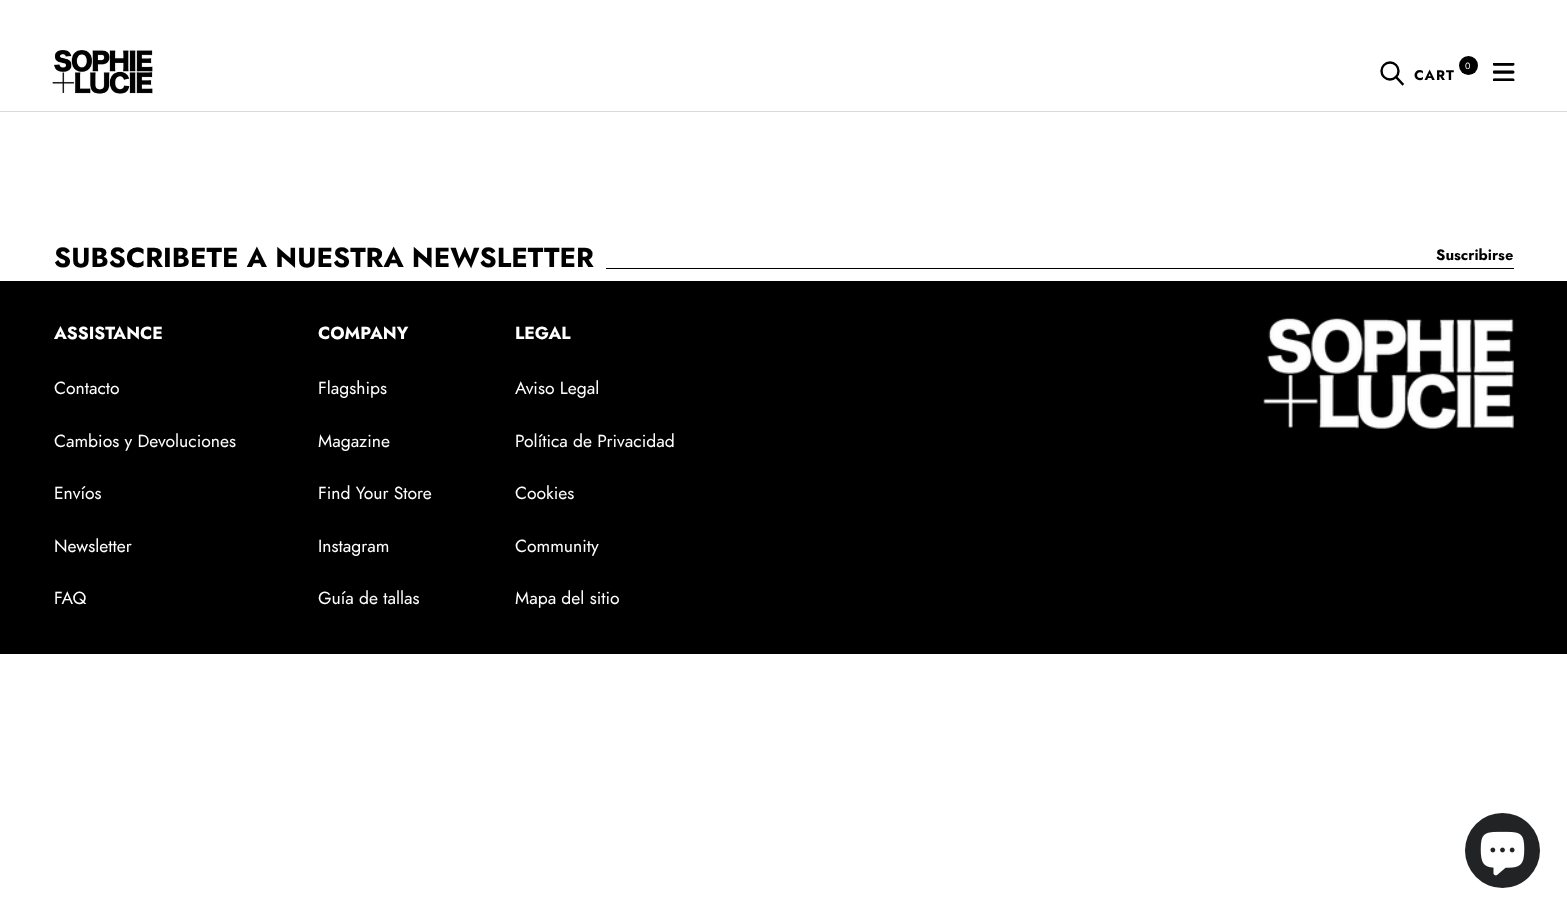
<svg xmlns="http://www.w3.org/2000/svg" width="1567" height="913" viewBox="0 0 1567 913">
  <style>
    .t1 { font: 9px 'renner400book'; fill: #fff; }
    .t2 { font: bold 14px 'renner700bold'; letter-spacing: 1px; fill: #000; }
    .t3 { font: bold 27.5px 'renner700bold'; fill: #000; }
    .t4 { font: bold 15px 'renner700bold'; fill: #000; }
    .t5 { font: bold 17.5px 'renner700bold'; fill: #fff; }
    .t6 { font: 17.5px 'renner400book'; fill: #fff; }
  </style>
  <rect width="100%" height="100%" fill="#fff"/>
  <rect x="0" y="111" width="1567" height="1" fill="#d9d9d9"/>
  <image x="52" y="50" width="101" height="44" href="images/1.png"/>
  <path d="M1402.5 84L1396 77" fill="none" stroke="#000" stroke-width="2.4" stroke-linecap="square"/>
  <circle cx="1390" cy="71" r="8.5" fill="none" stroke="#000" stroke-width="2.4"/>
  <circle cx="1468.5" cy="65.5" r="9.5" fill="#000"/>
  <text x="1465" y="69" class="t1">0</text>
  <text x="1414" y="80" class="t2">CART</text>
  <image x="1493" y="63" width="22" height="18" href="images/2.png"/>
  <text x="54" y="267" class="t3">SUBSCRIBETE A NUESTRA NEWSLETTER</text>
  <text x="1436" y="260" class="t4">Suscribirse</text>
  <rect x="606" y="268" width="908" height="1" fill="#000"/>
  <rect x="0" y="281" width="1567" height="373" fill="#000"/>
  <text x="54" y="339" class="t5">ASSISTANCE</text>
  <text x="54" y="394" class="t6">Contacto</text>
  <text x="54" y="447" class="t6">Cambios y Devoluciones</text>
  <text x="54" y="499" class="t6">Envíos</text>
  <text x="54" y="552" class="t6">Newsletter</text>
  <text x="54" y="604" class="t6">FAQ</text>
  <text x="318" y="339" class="t5">COMPANY</text>
  <text x="318" y="394" class="t6">Flagships</text>
  <text x="318" y="447" class="t6">Magazine</text>
  <text x="318" y="499" class="t6">Find Your Store</text>
  <text x="318" y="552" class="t6">Instagram</text>
  <text x="318" y="604" class="t6">Guía de tallas</text>
  <text x="515" y="339" class="t5">LEGAL</text>
  <text x="515" y="394" class="t6">Aviso Legal</text>
  <text x="515" y="447" class="t6">Política de Privacidad</text>
  <text x="515" y="499" class="t6">Cookies</text>
  <text x="515" y="552" class="t6">Community</text>
  <text x="515" y="604" class="t6">Mapa del sitio</text>
  <image x="1263" y="318" width="251" height="111" href="images/3.png"/>
  <circle cx="1502.5" cy="850.5" r="37.5" fill="#212325"/>
  <image x="1480" y="831" width="45" height="45" href="images/4.png"/>
</svg>
